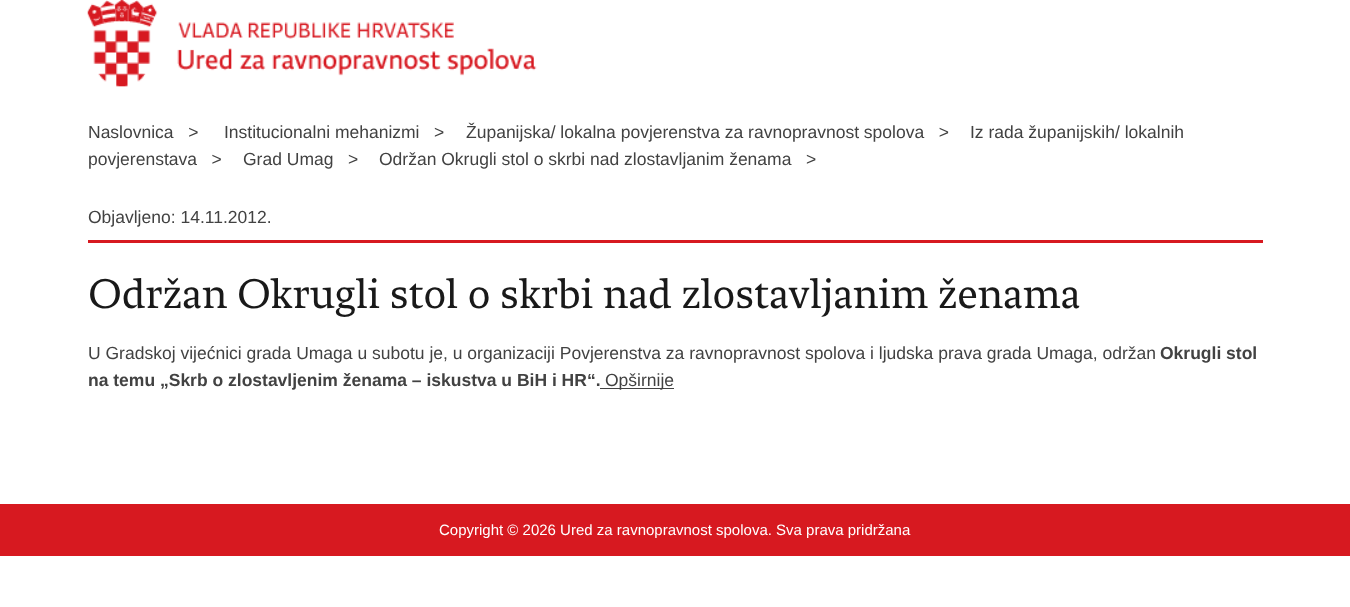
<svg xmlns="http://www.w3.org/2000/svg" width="1350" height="607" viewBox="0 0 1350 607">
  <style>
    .t1 { font: 17.5px Liberation Sans; fill: #424242; }
    .t2 { font: 43.75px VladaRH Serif; fill: #191919; }
    .t3 { font: bold 17.5px Liberation Sans; fill: #424242; }
    .t4 { font: 15px Liberation Sans; fill: #fff; }
  </style>
  <rect width="100%" height="100%" fill="#fff"/>
  <image x="87" y="0" width="450" height="87" href="images/1.png"/>
  <text x="88" y="138" class="t1" xml:space="preserve">Naslovnica   &gt;</text>
  <text x="224" y="138" class="t1" xml:space="preserve">Institucionalni mehanizmi   &gt;</text>
  <text x="466" y="138" class="t1" xml:space="preserve">Županijska/ lokalna povjerenstva za ravnopravnost spolova   &gt;</text>
  <text x="970" y="138" class="t1">Iz rada županijskih/ lokalnih</text>
  <text x="88" y="165" class="t1" xml:space="preserve">povjerenstava   &gt;</text>
  <text x="243" y="165" class="t1" xml:space="preserve">Grad Umag   &gt;</text>
  <text x="379" y="165" class="t1" xml:space="preserve">Održan Okrugli stol o skrbi nad zlostavljanim ženama   &gt;</text>
  <rect x="88" y="240" width="1175" height="3" fill="#d71920"/>
  <text x="88" y="223" class="t1">Objavljeno: 14.11.2012.</text>
  <text x="88" y="308" class="t2">Održan Okrugli stol o skrbi nad zlostavljanim ženama</text>
  <text x="88" y="359" class="t1">U Gradskoj vijećnici grada Umaga u subotu je, u organizaciji Povjerenstva za ravnopravnost spolova i ljudska prava grada Umaga, održan</text>
  <text x="1160" y="359" class="t3">Okrugli stol</text>
  <text x="88" y="386" class="t3">na temu „Skrb o zlostavljenim ženama – iskustva u BiH i HR“.</text>
  <rect x="600" y="388" width="74" height="1" fill="#424242"/>
  <text x="605" y="386" class="t1">Opširnije</text>
  <rect x="0" y="504" width="1350" height="52" fill="#d71920"/>
  <text x="439" y="535" class="t4">Copyright © 2026 Ured za ravnopravnost spolova. Sva prava pridržana</text>
</svg>
